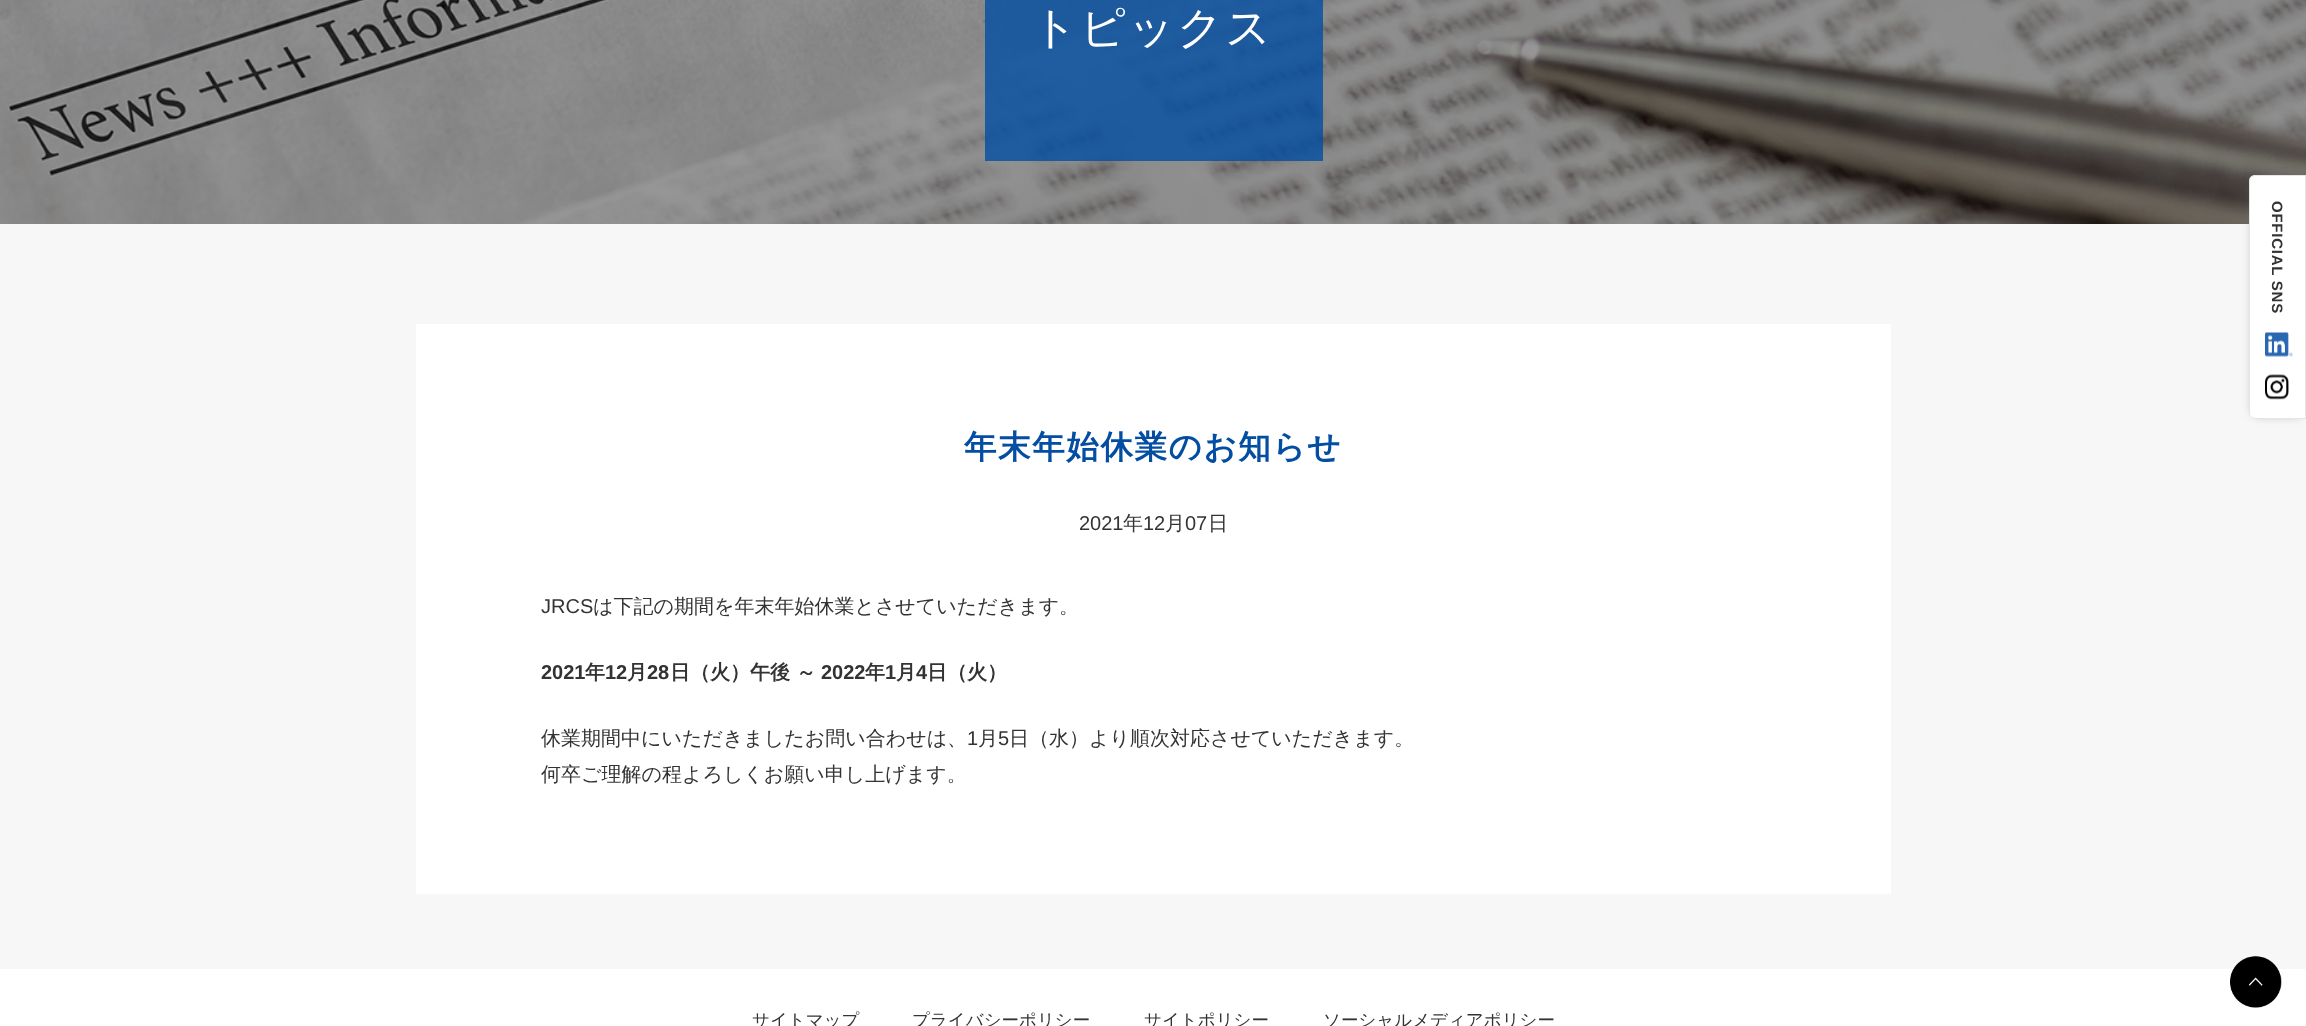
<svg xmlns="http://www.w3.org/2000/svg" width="2306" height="1026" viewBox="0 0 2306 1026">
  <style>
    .t1 { font: 500 45px WenQuanYi Zen Hei; letter-spacing: 2.25px; fill: #fff; }
    .t2 { font: bold 15px Liberation Sans; letter-spacing: 0.75px; fill: #333; }
    .t3 { font: bold 32.5px WenQuanYi Zen Hei; letter-spacing: 1.6px; fill: #034ea2; }
    .t4 { font: 20px Liberation Sans; fill: #333; }
    .t5 { font: 500 20px WenQuanYi Zen Hei; fill: #333; }
    .t6 { font: bold 20px Liberation Sans; fill: #333; }
    .t7 { font: bold 20px WenQuanYi Zen Hei; fill: #333; }
    .t8 { font: 500 17.5px WenQuanYi Zen Hei; fill: #333; }
  </style>
  <rect width="100%" height="100%" fill="#f7f7f7"/>
  <image x="0" y="0" width="2306" height="224" href="images/1.png"/>
  <rect x="985" y="0" width="338" height="161" fill="#034ea2cc"/>
  <text x="1032" y="43" class="t1">トピックス</text>
  <rect x="2255" y="181" width="45" height="232" fill="#777" filter="blur(6px)"/>
  <path d="M2255 175H2306V419H2255C2251.5 419 2249 416.5 2249 413V181C2249 177.5 2251.5 175 2255 175Z" fill="#fff"/>
  <path d="M2255 175.5H2305.5V418.5H2255C2252 418.5 2249.5 416 2249.5 413V181C2249.5 178 2252 175.5 2255 175.5Z" fill="none" stroke="#0000001a"/>
  <text x="2272" y="201" transform="rotate(90 2272 201)" class="t2">OFFICIAL SNS</text>
  <image x="2265" y="332" width="28" height="25" href="images/2.png"/>
  <image x="2265" y="374" width="24" height="26" href="images/3.png"/>
  <rect x="416" y="324" width="1475" height="570" fill="#fff"/>
  <text x="964" y="458" class="t3">年末年始休業のお知らせ</text>
  <text x="1079" y="530" class="t4">2021</text>
  <text x="1123" y="530" class="t5">年</text>
  <text x="1143" y="530" class="t4">12</text>
  <text x="1165" y="530" class="t5">月</text>
  <text x="1185" y="530" class="t4">07</text>
  <text x="1208" y="530" class="t5">日</text>
  <text x="541" y="613" class="t4">JRCS</text>
  <text x="593" y="613" class="t5">は下記の期間を年末年始休業とさせていただきます。</text>
  <text x="541" y="679" class="t6">2021</text>
  <text x="585" y="679" class="t7">年</text>
  <text x="605" y="679" class="t6">12</text>
  <text x="627" y="679" class="t7">月</text>
  <text x="647" y="679" class="t6">28</text>
  <text x="670" y="679" class="t7">日（火）午後 ～</text>
  <text x="821" y="679" class="t6">2022</text>
  <text x="865" y="679" class="t7">年</text>
  <text x="885" y="679" class="t6">1</text>
  <text x="896" y="679" class="t7">月</text>
  <text x="916" y="679" class="t6">4</text>
  <text x="927" y="679" class="t7">日（火）</text>
  <text x="541" y="745" class="t5">休業期間中にいただきましたお問い合わせは、</text>
  <text x="967" y="745" class="t4">1</text>
  <text x="978" y="745" class="t5">月</text>
  <text x="998" y="745" class="t4">5</text>
  <text x="1009" y="745" class="t5">日（水）より順次対応させていただきます。</text>
  <text x="541" y="781" class="t5">何卒ご理解の程よろしくお願い申し上げます。</text>
  <rect x="0" y="969" width="2306" height="57" fill="#fff"/>
  <image x="2230" y="956" width="52" height="52" href="images/4.png"/>
  <text x="752" y="1026" class="t8">サイトマップ</text>
  <text x="912" y="1026" class="t8">プライバシーポリシー</text>
  <text x="1144" y="1026" class="t8">サイトポリシー</text>
  <text x="1323" y="1026" class="t8">ソーシャルメディアポリシー</text>
</svg>
